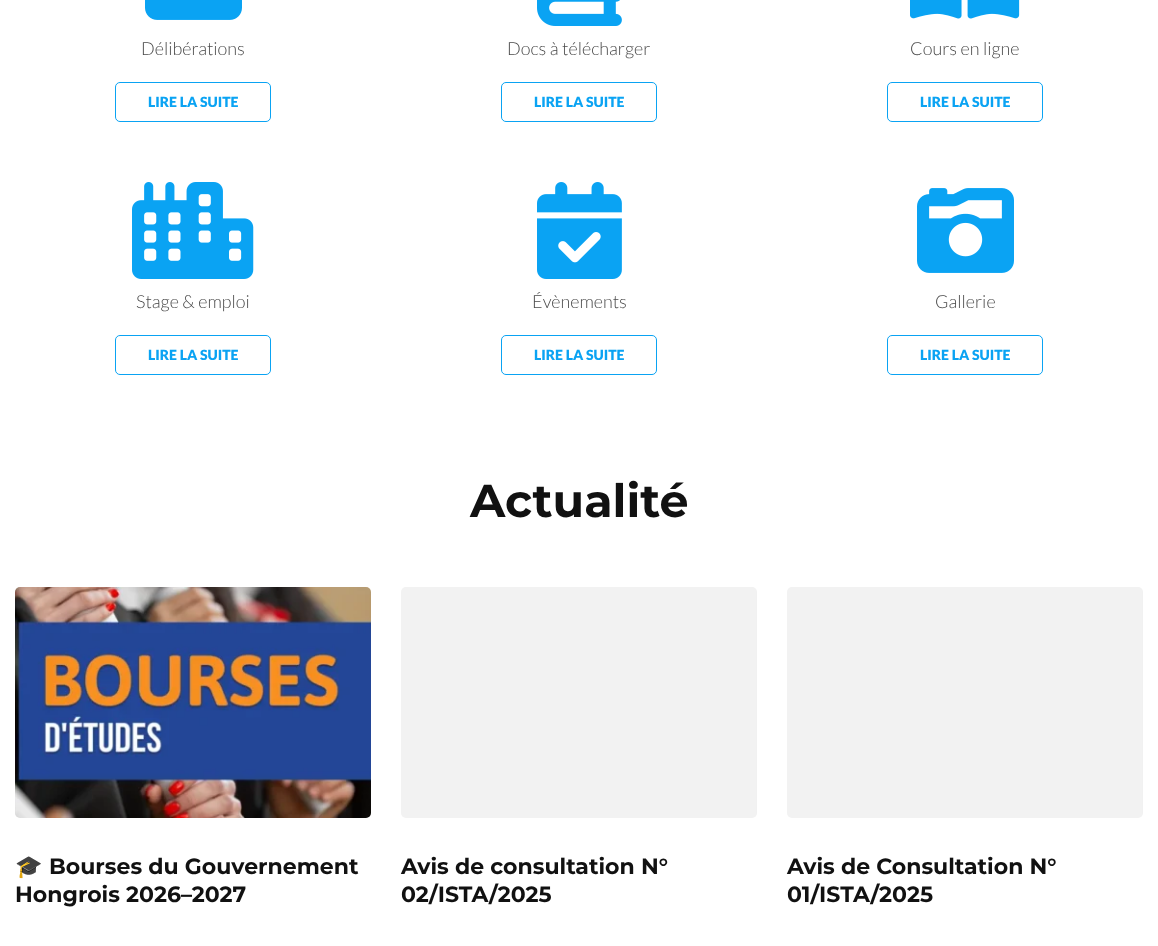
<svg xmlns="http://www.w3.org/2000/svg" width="1158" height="946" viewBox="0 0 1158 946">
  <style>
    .t1 { font: 300 18px Lato; fill: #4a4a4a; }
    .t2 { font: 900 14px Lato; fill: #0aa3f3; }
    .t3 { font: bold 46px Montserrat; fill: #111; }
    .t4 { font: bold 22px Noto Color Emoji; fill: #111; }
    .t5 { font: bold 22px Montserrat; fill: #111; }
  </style>
  <rect width="100%" height="100%" fill="#fff"/>
  <image x="145" y="0" width="97" height="20" href="images/1.png"/>
  <text x="141" y="55" class="t1">Délibérations</text>
  <rect x="115.5" y="82.5" width="155" height="39" rx="4.5" fill="none" stroke="#0aa3f3"/>
  <text x="148" y="107" class="t2">LIRE LA SUITE</text>
  <image x="537" y="0" width="85" height="26" href="images/2.png"/>
  <text x="507" y="55" class="t1">Docs à télécharger</text>
  <rect x="501.5" y="82.5" width="155" height="39" rx="4.5" fill="none" stroke="#0aa3f3"/>
  <text x="534" y="107" class="t2">LIRE LA SUITE</text>
  <image x="910" y="0" width="110" height="19" href="images/3.png"/>
  <text x="910" y="55" class="t1">Cours en ligne</text>
  <rect x="887.5" y="82.5" width="155" height="39" rx="4.5" fill="none" stroke="#0aa3f3"/>
  <text x="920" y="107" class="t2">LIRE LA SUITE</text>
  <image x="132" y="182" width="122" height="97" href="images/4.png"/>
  <text x="136" y="308" class="t1">Stage &amp; emploi</text>
  <rect x="115.5" y="335.5" width="155" height="39" rx="4.5" fill="none" stroke="#0aa3f3"/>
  <text x="148" y="360" class="t2">LIRE LA SUITE</text>
  <image x="537" y="182" width="85" height="97" href="images/5.png"/>
  <text x="532" y="308" class="t1">Évènements</text>
  <rect x="501.5" y="335.5" width="155" height="39" rx="4.5" fill="none" stroke="#0aa3f3"/>
  <text x="534" y="360" class="t2">LIRE LA SUITE</text>
  <image x="917" y="188" width="97" height="85" href="images/6.png"/>
  <text x="935" y="308" class="t1">Gallerie</text>
  <rect x="887.5" y="335.5" width="155" height="39" rx="4.5" fill="none" stroke="#0aa3f3"/>
  <text x="920" y="360" class="t2">LIRE LA SUITE</text>
  <text x="470" y="517" class="t3">Actualité</text>
  <image x="15" y="587" width="356" height="231" href="images/7.png"/>
  <text x="15" y="874" class="t4">🎓</text>
  <text x="49" y="874" class="t5">Bourses du Gouvernement</text>
  <text x="15" y="902" class="t5">Hongrois 2026–2027</text>
  <image x="401" y="587" width="356" height="231" href="images/8.png"/>
  <text x="401" y="874" class="t5">Avis de consultation N°</text>
  <text x="401" y="902" class="t5">02/ISTA/2025</text>
  <image x="787" y="587" width="356" height="231" href="images/8.png"/>
  <text x="787" y="874" class="t5">Avis de Consultation N°</text>
  <text x="787" y="902" class="t5">01/ISTA/2025</text>
</svg>
